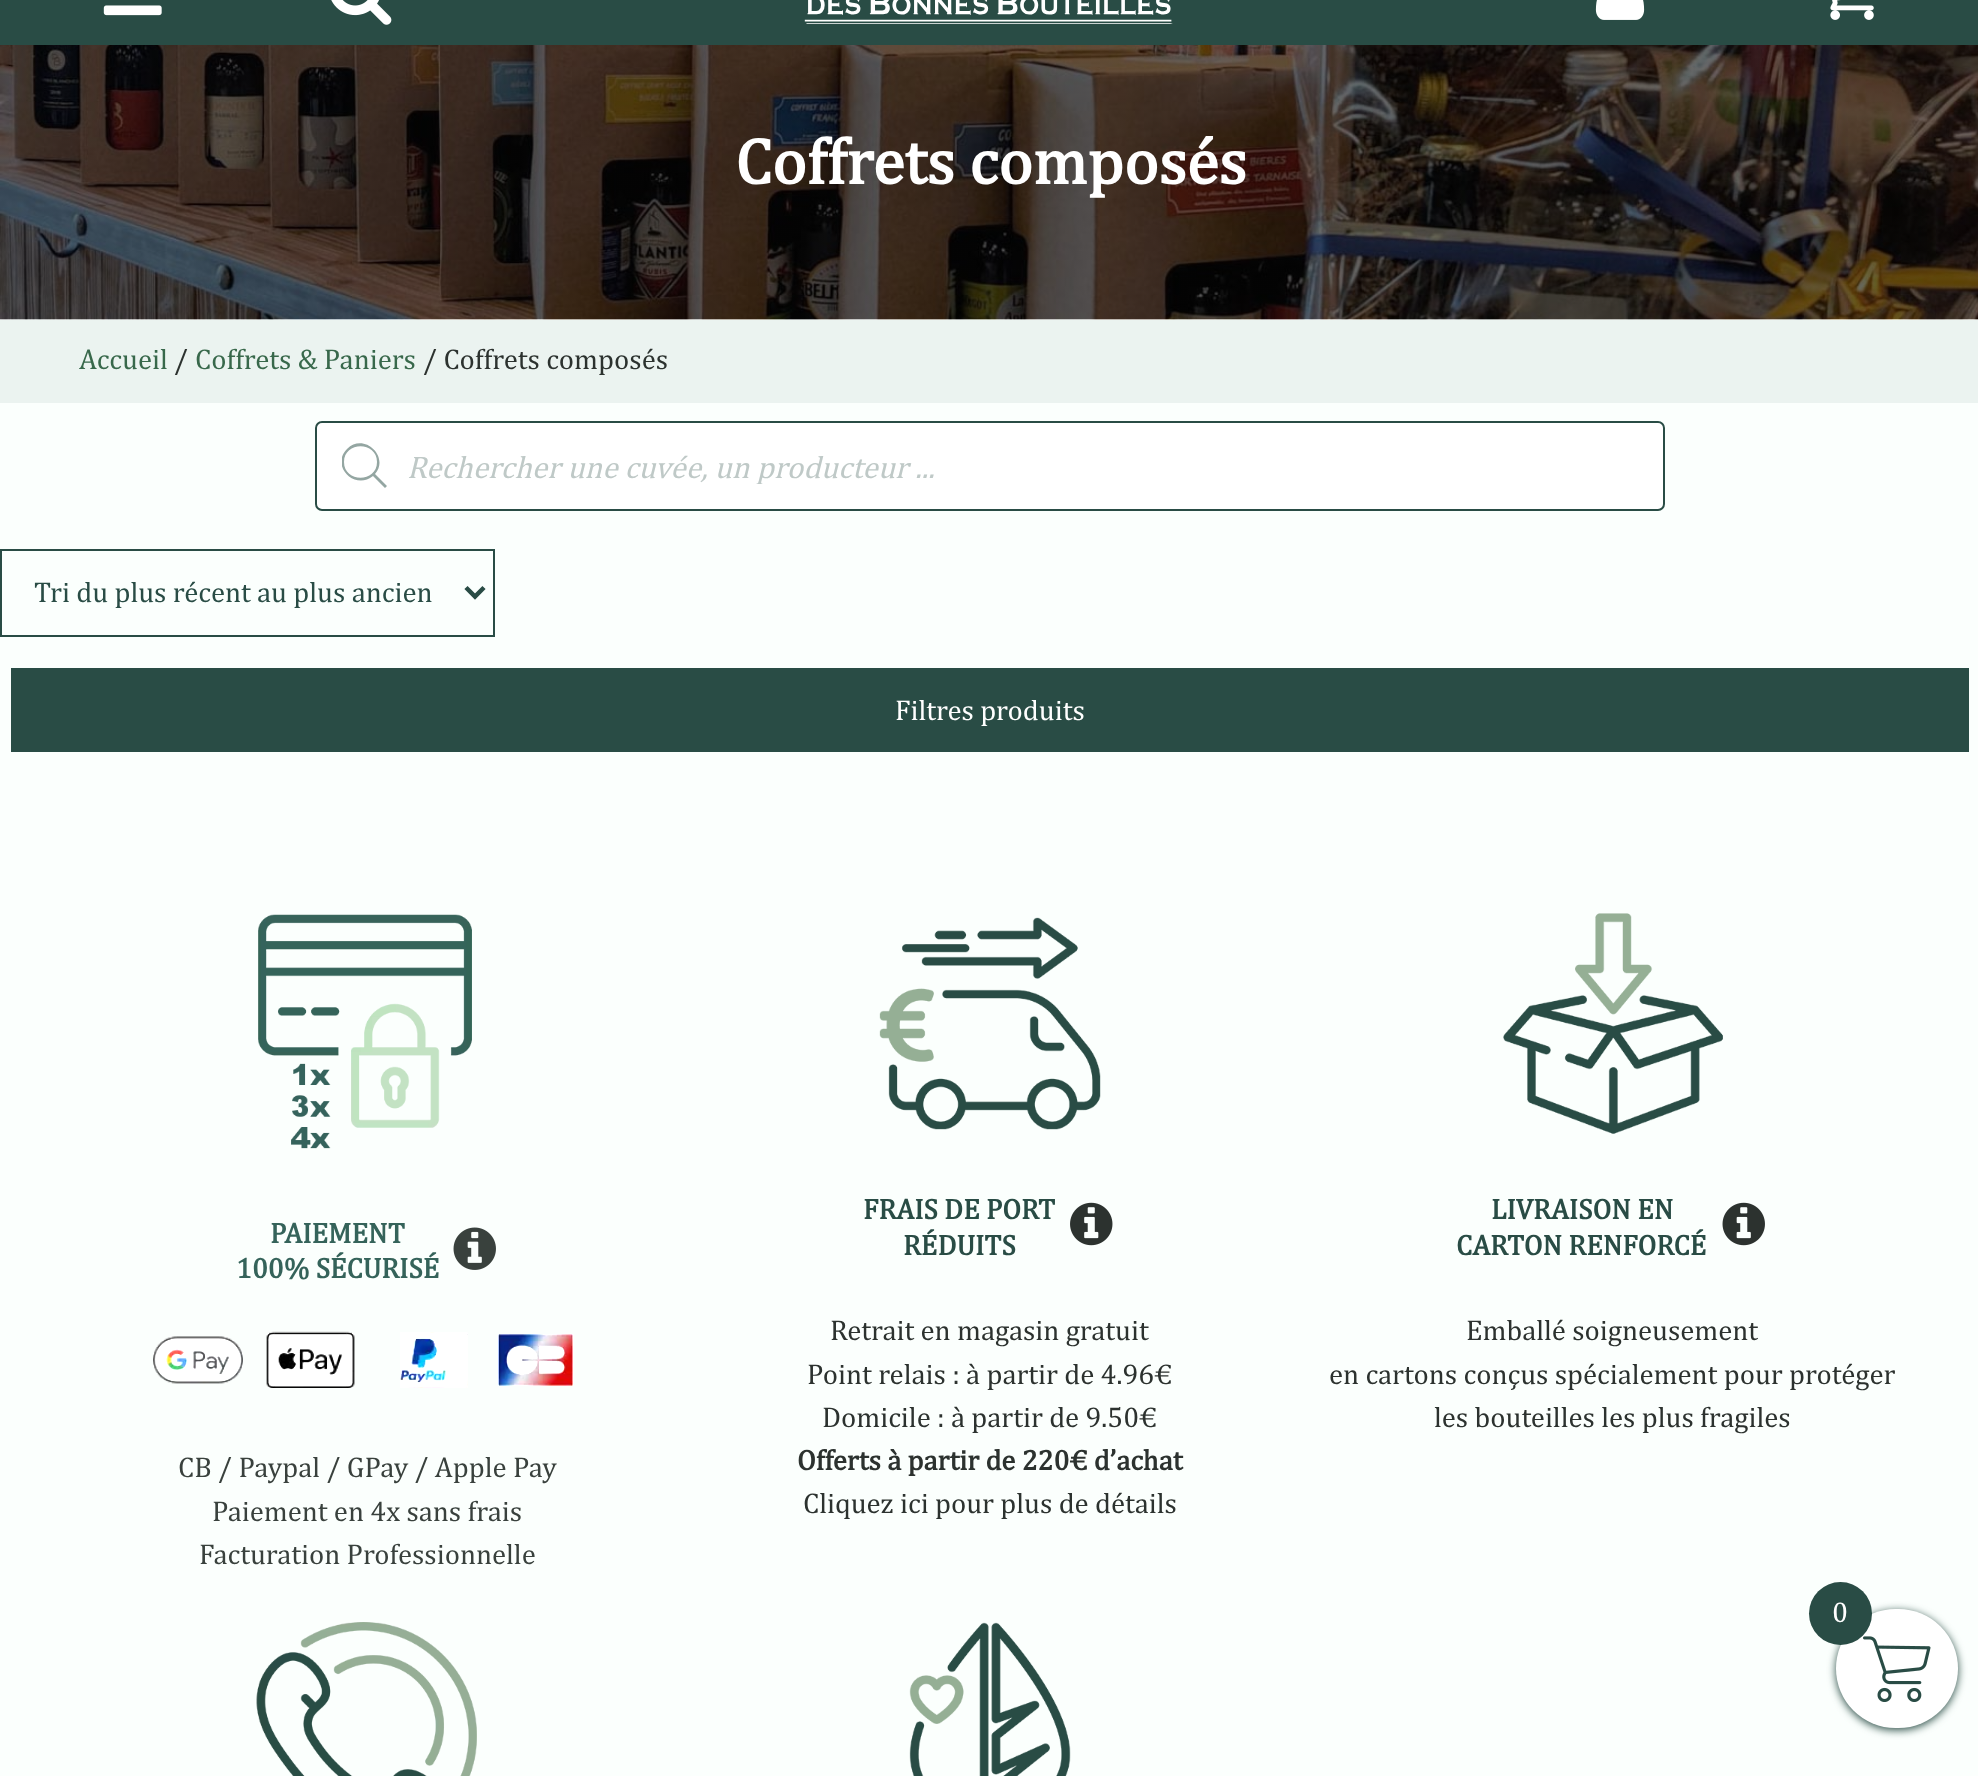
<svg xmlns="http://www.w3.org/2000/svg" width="1978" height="1776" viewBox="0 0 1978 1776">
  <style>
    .t1 { font: bold 65.5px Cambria; fill: #fff; }
    .t2 { font: 28.75px Cambria; fill: #38684b; }
    .t3 { font: 28.75px Cambria; fill: #2c322f; }
    .t4 { font: italic 31.5px Cambria; fill: #bfc9c7; }
    .t5 { font: 28.75px Cambria; fill: #294c45; }
    .t6 { font: 28.75px Cambria; fill: #fff; }
    .t7 { font: bold 28.75px Cambria; fill: #35635a; }
    .t8 { font: 28.75px Cambria; fill: #39413d; }
    .t9 { font: bold 28.75px Cambria; fill: #294c45; }
    .t10 { font: bold 28.75px Cambria; fill: #2c322f; }
    .t11 { font: 29px Cambria; fill: #fff; }
  </style>
  <defs>
    <clipPath id="clip1"><rect x="342" y="443" width="45" height="45"/></clipPath>
    <clipPath id="clip2"><rect x="407" y="448" width="1222" height="36"/></clipPath>
  </defs>
  <rect width="100%" height="100%" fill="#fbfffd"/>
  <rect x="0" y="0" width="1978" height="45" fill="#294c45"/>
  <image x="103" y="5" width="59" height="11" href="images/1.png"/>
  <image x="331" y="0" width="61" height="25" href="images/2.png"/>
  <image x="804" y="0" width="369" height="24" href="images/3.png"/>
  <image x="1595" y="0" width="50" height="20" href="images/4.png"/>
  <image x="1830" y="0" width="44" height="20" href="images/5.png"/>
  <image x="0" y="45" width="1978" height="275" href="images/6.png"/>
  <text x="735" y="184" class="t1">Coffrets composés</text>
  <rect x="0" y="320" width="1978" height="83" fill="#ebf3f0"/>
  <text x="79" y="369" class="t2">Accueil</text>
  <text x="174" y="369" class="t3">/</text>
  <text x="195" y="369" class="t2">Coffrets &amp; Paniers</text>
  <text x="423" y="369" class="t3">/ Coffrets composés</text>
  <rect x="316" y="422" width="1348" height="88" rx="6" fill="#fff" stroke="#294c45" stroke-width="2"/>
  <g clip-path="url(#clip1)">
    <path d="M387 486L375 474C390 457 364 432 347 449C330 466 355 491 373 476L385 488ZM344 462C344 441 377 441 377 462C377 483 344 483 344 462Z" fill="#94a6a2"/>
  </g>
  <g clip-path="url(#clip2)">
    <text x="407" y="478" class="t4">Rechercher une cuvée, un producteur ...</text>
  </g>
  <rect x="1" y="550" width="493" height="86" fill="none" stroke="#294c45" stroke-width="2"/>
  <path d="M466 587.5L475 596.5L484 587.5" fill="none" stroke="#294c45" stroke-width="4.5"/>
  <text x="34" y="602" class="t5">Tri du plus récent au plus ancien</text>
  <rect x="11" y="668" width="1958" height="84" fill="#294c45"/>
  <text x="895" y="720" class="t6">Filtres produits</text>
  <image x="258" y="914" width="214" height="235" href="images/7.png"/>
  <text x="270" y="1243" class="t7">PAIEMENT</text>
  <text x="236" y="1278" class="t7">100% SÉCURISÉ</text>
  <image x="453" y="1227" width="43" height="43" href="images/8.png"/>
  <image x="153" y="1336" width="90" height="48" href="images/9.png"/>
  <image x="266" y="1331" width="89" height="57" href="images/10.png"/>
  <image x="400" y="1332" width="68" height="56" href="images/11.png"/>
  <image x="498" y="1334" width="76" height="52" href="images/12.png"/>
  <text x="178" y="1477" class="t8">CB / Paypal / GPay / Apple Pay</text>
  <text x="212" y="1521" class="t8">Paiement en 4x sans frais</text>
  <text x="199" y="1564" class="t8">Facturation Professionnelle</text>
  <image x="879" y="917" width="222" height="213" href="images/13.png"/>
  <text x="863" y="1219" class="t9">FRAIS DE PORT</text>
  <text x="903" y="1255" class="t9">RÉDUITS</text>
  <image x="1070" y="1202" width="43" height="44" href="images/14.png"/>
  <text x="830" y="1340" class="t3">Retrait en magasin gratuit</text>
  <text x="807" y="1384" class="t3">Point relais : à partir de 4.96€</text>
  <text x="822" y="1427" class="t3">Domicile : à partir de 9.50€</text>
  <text x="797" y="1470" class="t10">Offerts à partir de 220€ d’achat</text>
  <text x="803" y="1513" class="t3">Cliquez ici pour plus de détails</text>
  <image x="1503" y="913" width="220" height="221" href="images/15.png"/>
  <text x="1491" y="1219" class="t9">LIVRAISON EN</text>
  <text x="1456" y="1255" class="t9">CARTON RENFORCÉ</text>
  <image x="1722" y="1202" width="43" height="44" href="images/16.png"/>
  <text x="1466" y="1340" class="t3">Emballé soigneusement</text>
  <text x="1329" y="1384" class="t3">en cartons conçus spécialement pour protéger</text>
  <text x="1434" y="1427" class="t3">les bouteilles les plus fragiles</text>
  <image x="256" y="1622" width="221" height="154" href="images/17.png"/>
  <image x="909" y="1622" width="162" height="154" href="images/18.png"/>
  <rect x="1836" y="1611" width="122" height="119" rx="59.5" fill="#294c45" filter="blur(4.5px)"/>
  <rect x="1836" y="1609" width="122" height="119" rx="59.5" fill="#fff"/>
  <circle cx="1840.5" cy="1613.5" r="31.5" fill="#294c45"/>
  <text x="1832" y="1622" class="t11">0</text>
  <image x="1863" y="1636" width="68" height="66" href="images/19.png"/>
</svg>
